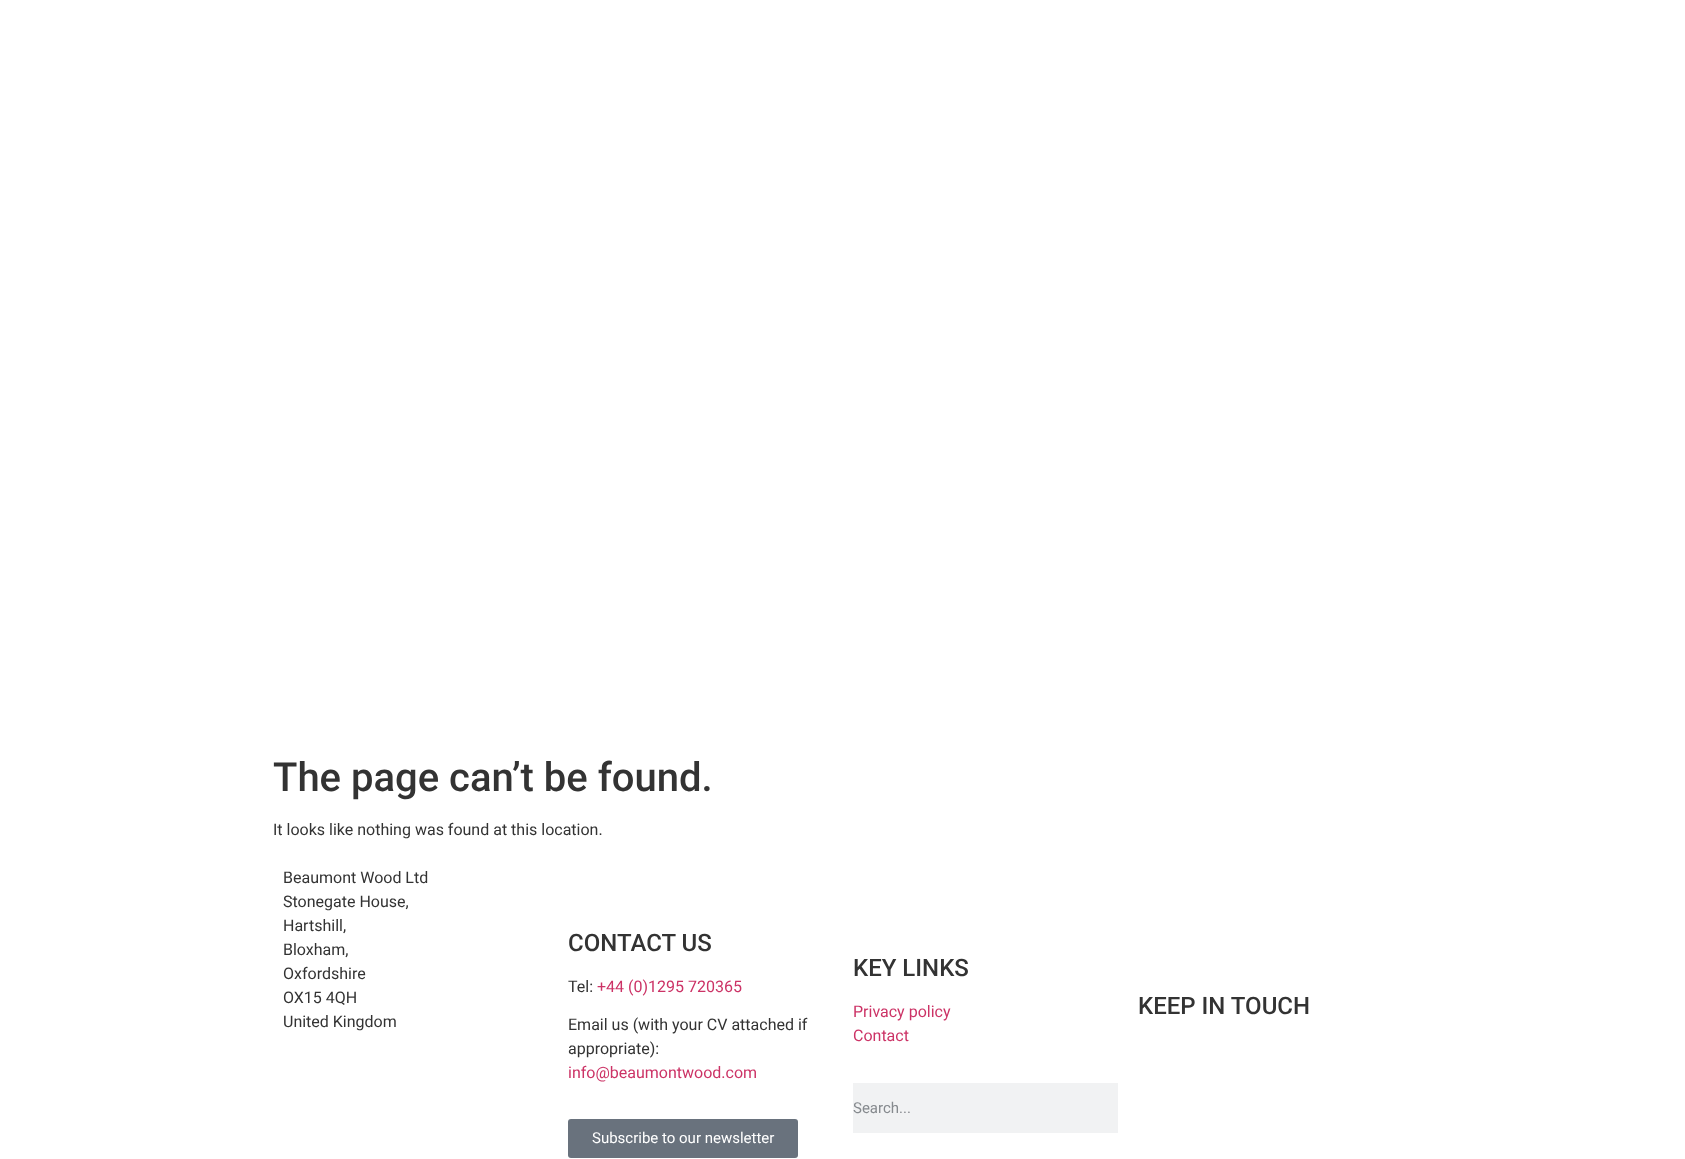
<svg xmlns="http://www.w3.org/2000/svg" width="1685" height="1159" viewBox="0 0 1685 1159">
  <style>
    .t1 { font: 500 40px Roboto; fill: #333; }
    .t2 { font: 16px Roboto; fill: #333; }
    .t3 { font: 500 24px Roboto; fill: #333; }
    .t4 { font: 16px Roboto; fill: #c36; }
    .t5 { font: 15px Roboto; fill: #fff; }
    .t6 { font: 15px Roboto; fill: #868a8e; }
  </style>
  <rect width="100%" height="100%" fill="#fff"/>
  <text x="273" y="791" class="t1">The page can’t be found.</text>
  <text x="273" y="835" class="t2">It looks like nothing was found at this location.</text>
  <text x="283" y="883" class="t2">Beaumont Wood Ltd</text>
  <text x="283" y="907" class="t2">Stonegate House,</text>
  <text x="283" y="931" class="t2">Hartshill,</text>
  <text x="283" y="955" class="t2">Bloxham,</text>
  <text x="283" y="979" class="t2">Oxfordshire</text>
  <text x="283" y="1003" class="t2">OX15 4QH</text>
  <text x="283" y="1027" class="t2">United Kingdom</text>
  <text x="568" y="951" class="t3">CONTACT US</text>
  <text x="568" y="992" class="t2">Tel:</text>
  <text x="597" y="992" class="t4">+44 (0)1295 720365</text>
  <text x="568" y="1030" class="t2">Email us (with your CV attached if</text>
  <text x="568" y="1054" class="t2">appropriate):</text>
  <text x="568" y="1078" class="t4">info@beaumontwood.com</text>
  <rect x="568" y="1119" width="230" height="39" rx="3" fill="#69727d"/>
  <text x="592" y="1143" class="t5">Subscribe to our newsletter</text>
  <text x="853" y="976" class="t3">KEY LINKS</text>
  <text x="853" y="1017" class="t4">Privacy policy</text>
  <text x="853" y="1041" class="t4">Contact</text>
  <rect x="853" y="1083" width="265" height="50" fill="#f1f2f3"/>
  <text x="853" y="1113" class="t6">Search...</text>
  <text x="1138" y="1014" class="t3">KEEP IN TOUCH</text>
</svg>
